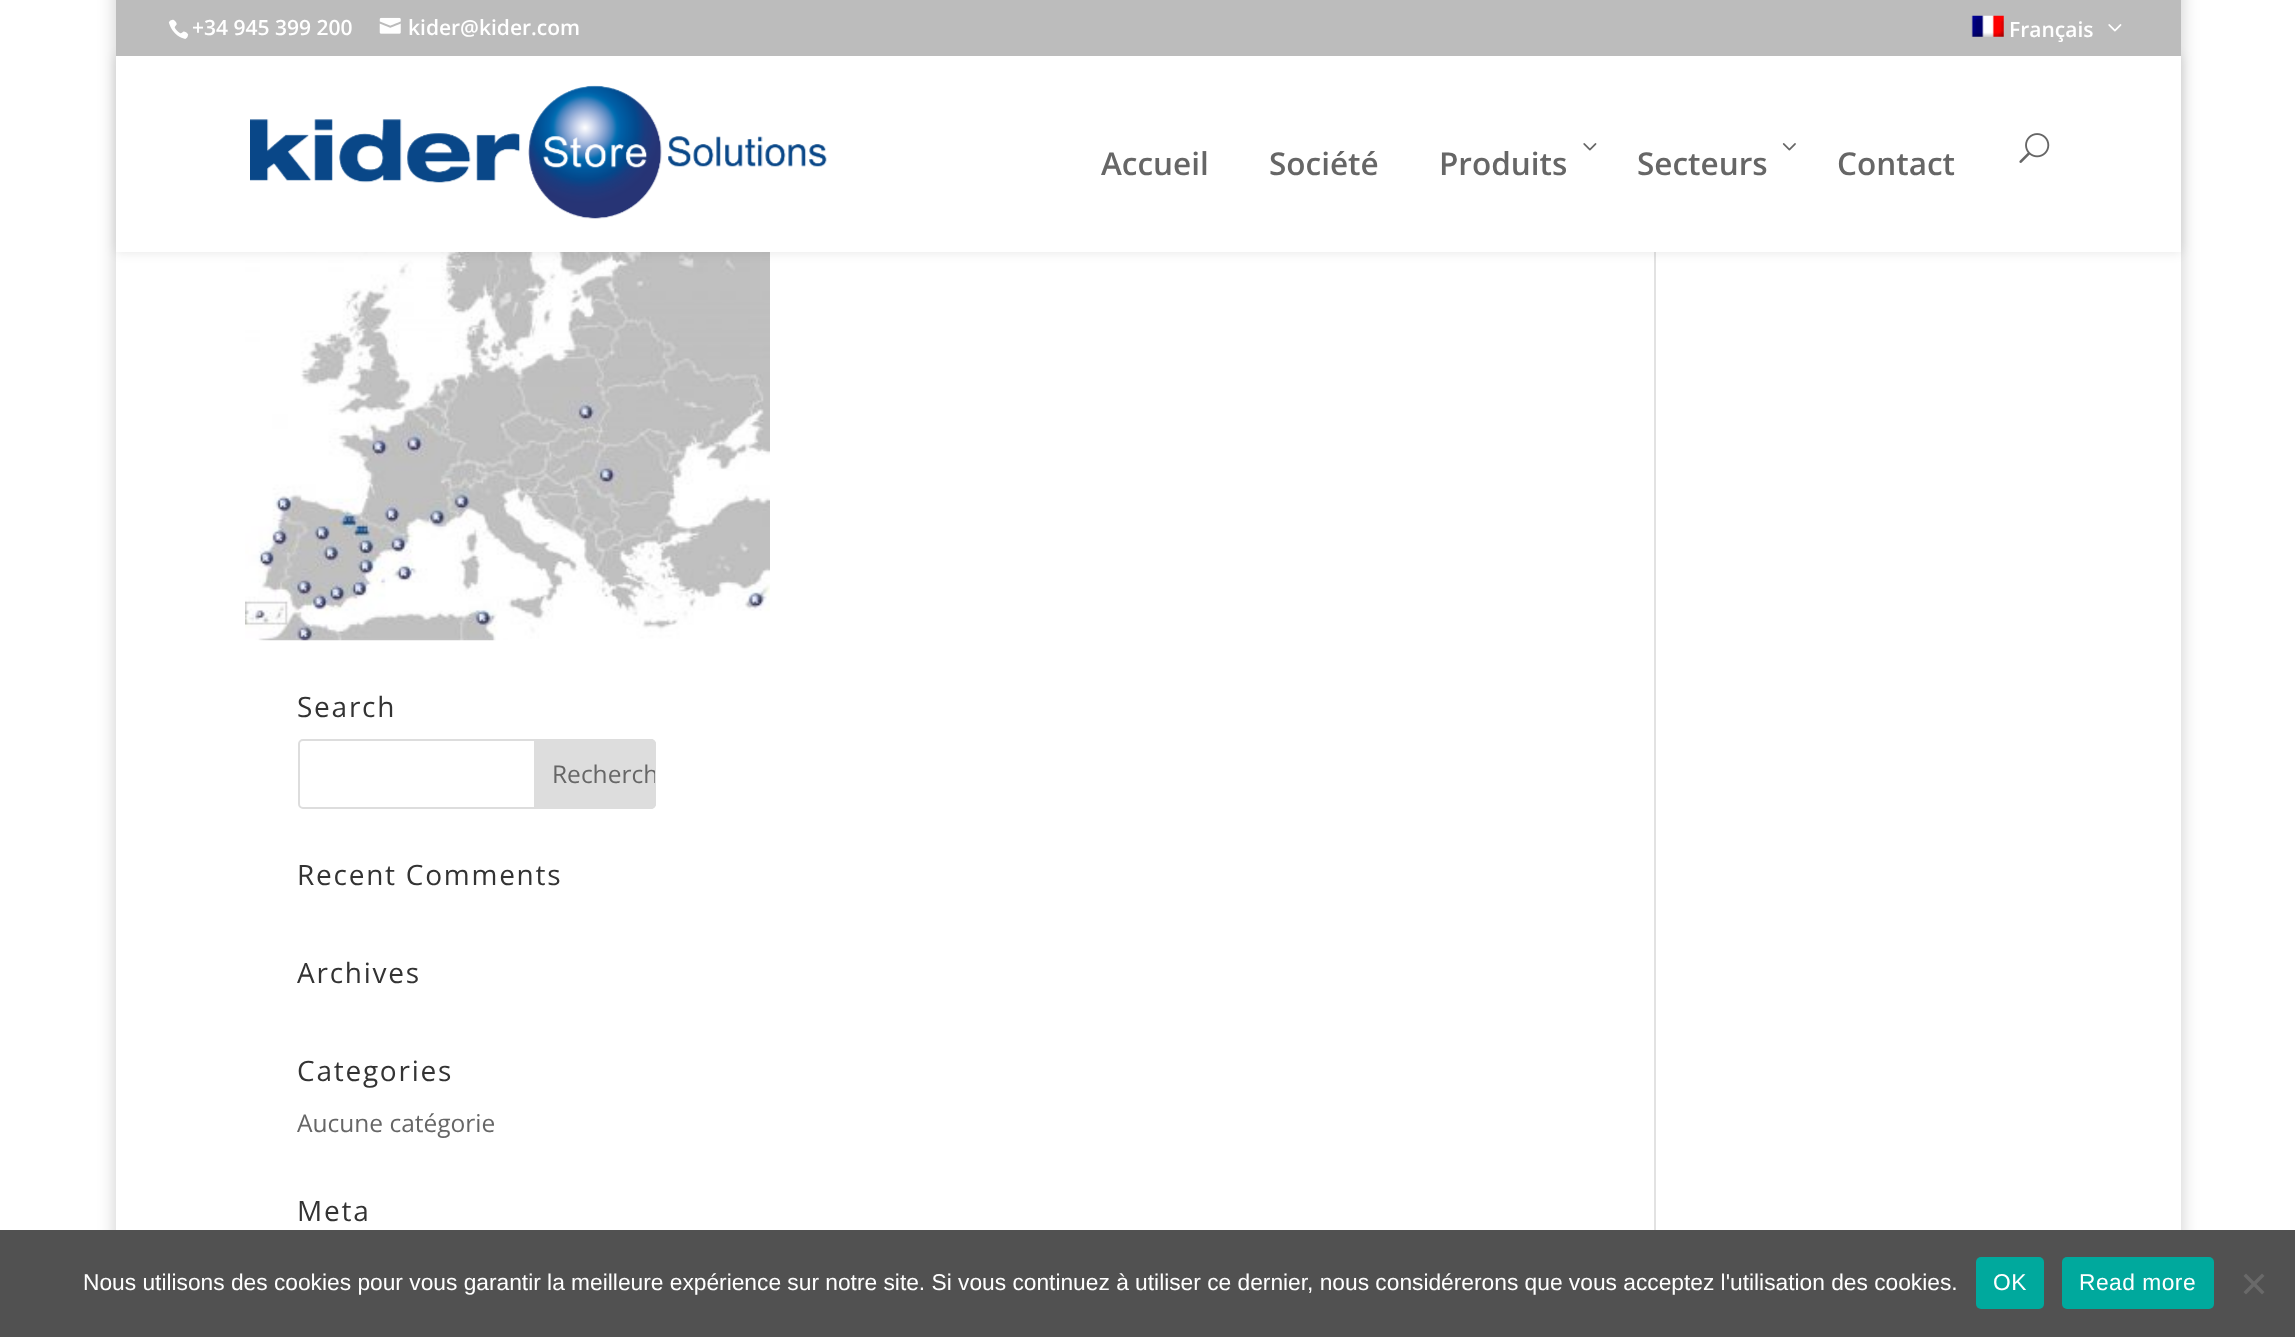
<svg xmlns="http://www.w3.org/2000/svg" width="2295" height="1337" viewBox="0 0 2295 1337">
  <style>
    .t1 { font: 600 21px Open Sans; fill: #fff; }
    .t2 { font: 600 31.5px Open Sans; fill: #666; }
    .t3 { font: 28px Open Sans; letter-spacing: 1.75px; fill: #333; }
    .t4 { font: 24.5px Open Sans; fill: #666; }
    .t5 { font: 22.75px Liberation Sans; fill: #fff; }
    .t6 { font: 22.75px Liberation Sans; letter-spacing: 0.5px; fill: #fff; }
  </style>
  <defs>
    <clipPath id="clip1"><path d="M536 740H651C653 740 655 742 655 744V803C655 805 653 807 651 807H536Z"/></clipPath>
  </defs>
  <rect width="100%" height="100%" fill="#fff"/>
  <rect x="116" y="-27" width="2065" height="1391" fill="#00000033" filter="blur(9px)"/>
  <rect x="116" y="252" width="2065" height="978" fill="#fff"/>
  <image x="245" y="252" width="525" height="389" href="images/9.png"/>
  <rect x="1654" y="252" width="2" height="978" fill="#e2e2e2"/>
  <rect x="116" y="56" width="2065" height="196" fill="#0000001a" filter="blur(6px)"/>
  <rect x="116" y="0" width="2065" height="56" fill="#bcbcbc"/>
  <image x="168" y="19" width="21" height="20" href="images/1.png"/>
  <text x="192" y="35" class="t1">+34 945 399 200</text>
  <image x="379" y="17" width="22" height="17" href="images/2.png"/>
  <text x="408" y="35" class="t1">kider@kider.com</text>
  <image x="1971" y="15" width="33" height="22" href="images/3.png"/>
  <text x="2009" y="37" class="t1">Français</text>
  <image x="2108" y="24" width="14" height="8" href="images/4.png"/>
  <rect x="116" y="56" width="2065" height="196" fill="#fff"/>
  <image x="250" y="85" width="577" height="134" href="images/5.png"/>
  <text x="1101" y="175" class="t2">Accueil</text>
  <text x="1269" y="175" class="t2">Société</text>
  <image x="1583" y="143" width="14" height="8" href="images/6.png"/>
  <text x="1439" y="175" class="t2">Produits</text>
  <image x="1782" y="143" width="14" height="8" href="images/7.png"/>
  <text x="1637" y="175" class="t2">Secteurs</text>
  <text x="1837" y="175" class="t2">Contact</text>
  <image x="2019" y="133" width="31" height="30" href="images/8.png"/>
  <text x="297" y="717" class="t3">Search</text>
  <rect x="299" y="740" width="356" height="68" rx="4" fill="none" stroke="#ddd" stroke-width="2"/>
  <path d="M535 740H651C653 740 655 742 655 744V804C655 806 653 808 651 808H535Z" fill="#ddd" stroke="#ddd" stroke-width="2"/>
  <g clip-path="url(#clip1)">
    <text x="552" y="783" class="t4">Recherch</text>
  </g>
  <text x="297" y="885" class="t3">Recent Comments</text>
  <text x="297" y="983" class="t3">Archives</text>
  <text x="297" y="1081" class="t3">Categories</text>
  <text x="297" y="1132" class="t4">Aucune catégorie</text>
  <text x="297" y="1221" class="t3">Meta</text>
  <rect x="0" y="1230" width="2295" height="107" fill="#515151"/>
  <text x="83" y="1290" class="t5">Nous utilisons des cookies pour vous garantir la meilleure expérience sur notre site. Si vous continuez à utiliser ce dernier, nous considérerons que vous acceptez l'utilisation des cookies.</text>
  <rect x="1976" y="1257" width="68" height="52" rx="5" fill="#00a99d"/>
  <text x="1993" y="1290" class="t6">OK</text>
  <rect x="2062" y="1257" width="152" height="52" rx="5" fill="#00a99d"/>
  <text x="2079" y="1290" class="t6">Read more</text>
  <path d="M2262 1273.5L2264.5 1276L2246 1294.5L2243.5 1292Z" fill="#696969"/>
  <path d="M2243.5 1276L2246 1273.5L2264.5 1292L2262 1294.5Z" fill="#696969"/>
</svg>
